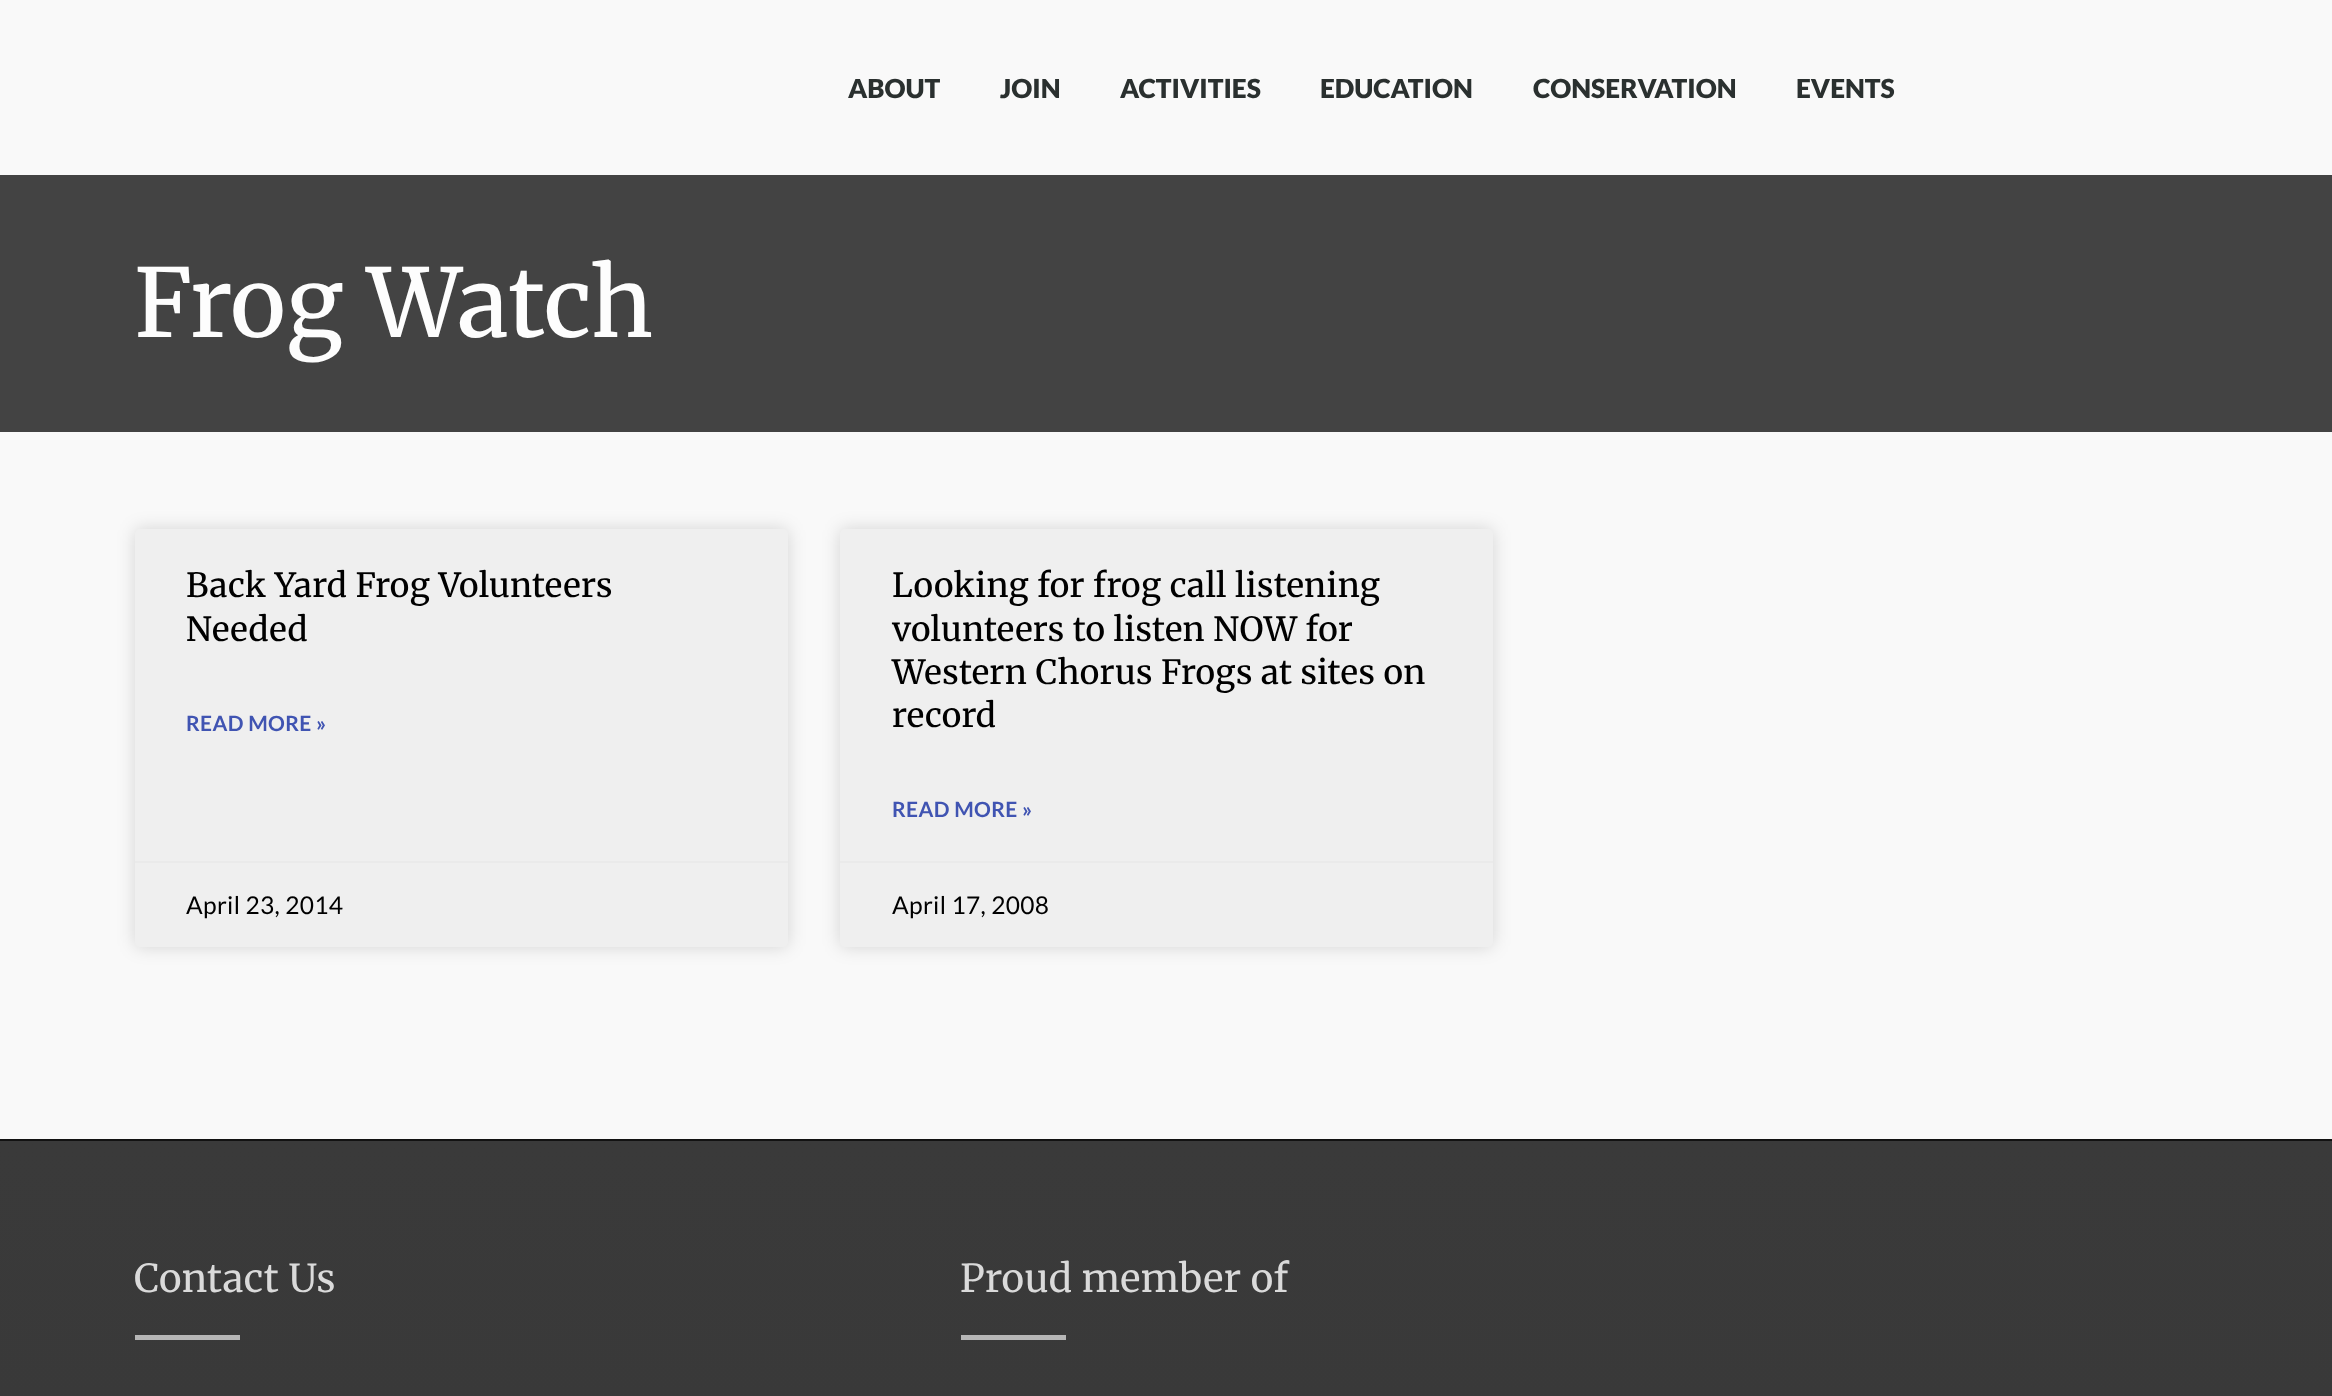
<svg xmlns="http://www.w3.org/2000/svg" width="2332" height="1396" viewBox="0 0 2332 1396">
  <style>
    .t1 { font: 900 26.25px Lato; fill: #2a302f; }
    .t2 { font: 500 94.5px Merriweather; letter-spacing: 0.35px; fill: #fdfdfd; }
    .t3 { font: 500 33.25px Merriweather; letter-spacing: 0.35px; fill: #000; }
    .t4 { font: bold 21px Lato; letter-spacing: 0.35px; fill: #4054b2; }
    .t5 { font: 24.5px Lato; letter-spacing: 0.35px; fill: #000; }
    .t6 { font: 38.5px Merriweather; letter-spacing: 0.35px; fill: #dadada; }
  </style>
  <defs>
    <linearGradient id="g1" gradientUnits="userSpaceOnUse" x1="1166" y1="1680" x2="1166" y2="1141"><stop offset="0" stop-color="#383838"/><stop offset="1" stop-color="#3a3a3a"/></linearGradient>
  </defs>
  <rect width="100%" height="100%" fill="#f9f9f9"/>
  <text x="848" y="98" class="t1">ABOUT</text>
  <text x="1000" y="98" class="t1">JOIN</text>
  <text x="1120" y="98" class="t1">ACTIVITIES</text>
  <text x="1320" y="98" class="t1">EDUCATION</text>
  <text x="1533" y="98" class="t1">CONSERVATION</text>
  <text x="1796" y="98" class="t1">EVENTS</text>
  <rect x="0" y="175" width="2332" height="257" fill="#434343"/>
  <text x="134" y="337" class="t2">Frog Watch</text>
  <rect x="135" y="529" width="653" height="418" rx="5" fill="#00000026" filter="blur(9px)"/>
  <rect x="135" y="529" width="653" height="418" rx="5" fill="#efefef"/>
  <text x="186" y="597" class="t3">Back Yard Frog Volunteers</text>
  <text x="186" y="641" class="t3">Needed</text>
  <text x="186" y="731" class="t4">READ MORE »</text>
  <rect x="135" y="861" width="653" height="2" fill="#eaeaea"/>
  <text x="186" y="914" class="t5">April 23, 2014</text>
  <rect x="840" y="529" width="653" height="418" rx="5" fill="#00000026" filter="blur(9px)"/>
  <rect x="840" y="529" width="653" height="418" rx="5" fill="#efefef"/>
  <text x="892" y="597" class="t3">Looking for frog call listening</text>
  <text x="892" y="641" class="t3">volunteers to listen NOW for</text>
  <text x="892" y="684" class="t3">Western Chorus Frogs at sites on</text>
  <text x="892" y="727" class="t3">record</text>
  <text x="892" y="817" class="t4">READ MORE »</text>
  <rect x="840" y="861" width="653" height="2" fill="#eaeaea"/>
  <text x="892" y="914" class="t5">April 17, 2008</text>
  <rect x="0" y="1141" width="2332" height="255" fill="url(#g1)"/>
  <rect x="0" y="1139" width="2332" height="2" fill="#121212"/>
  <text x="134" y="1292" class="t6">Contact Us</text>
  <rect x="135" y="1335" width="105" height="5" fill="#b6b6b6"/>
  <text x="960" y="1292" class="t6">Proud member of</text>
  <rect x="961" y="1335" width="105" height="5" fill="#b6b6b6"/>
</svg>
